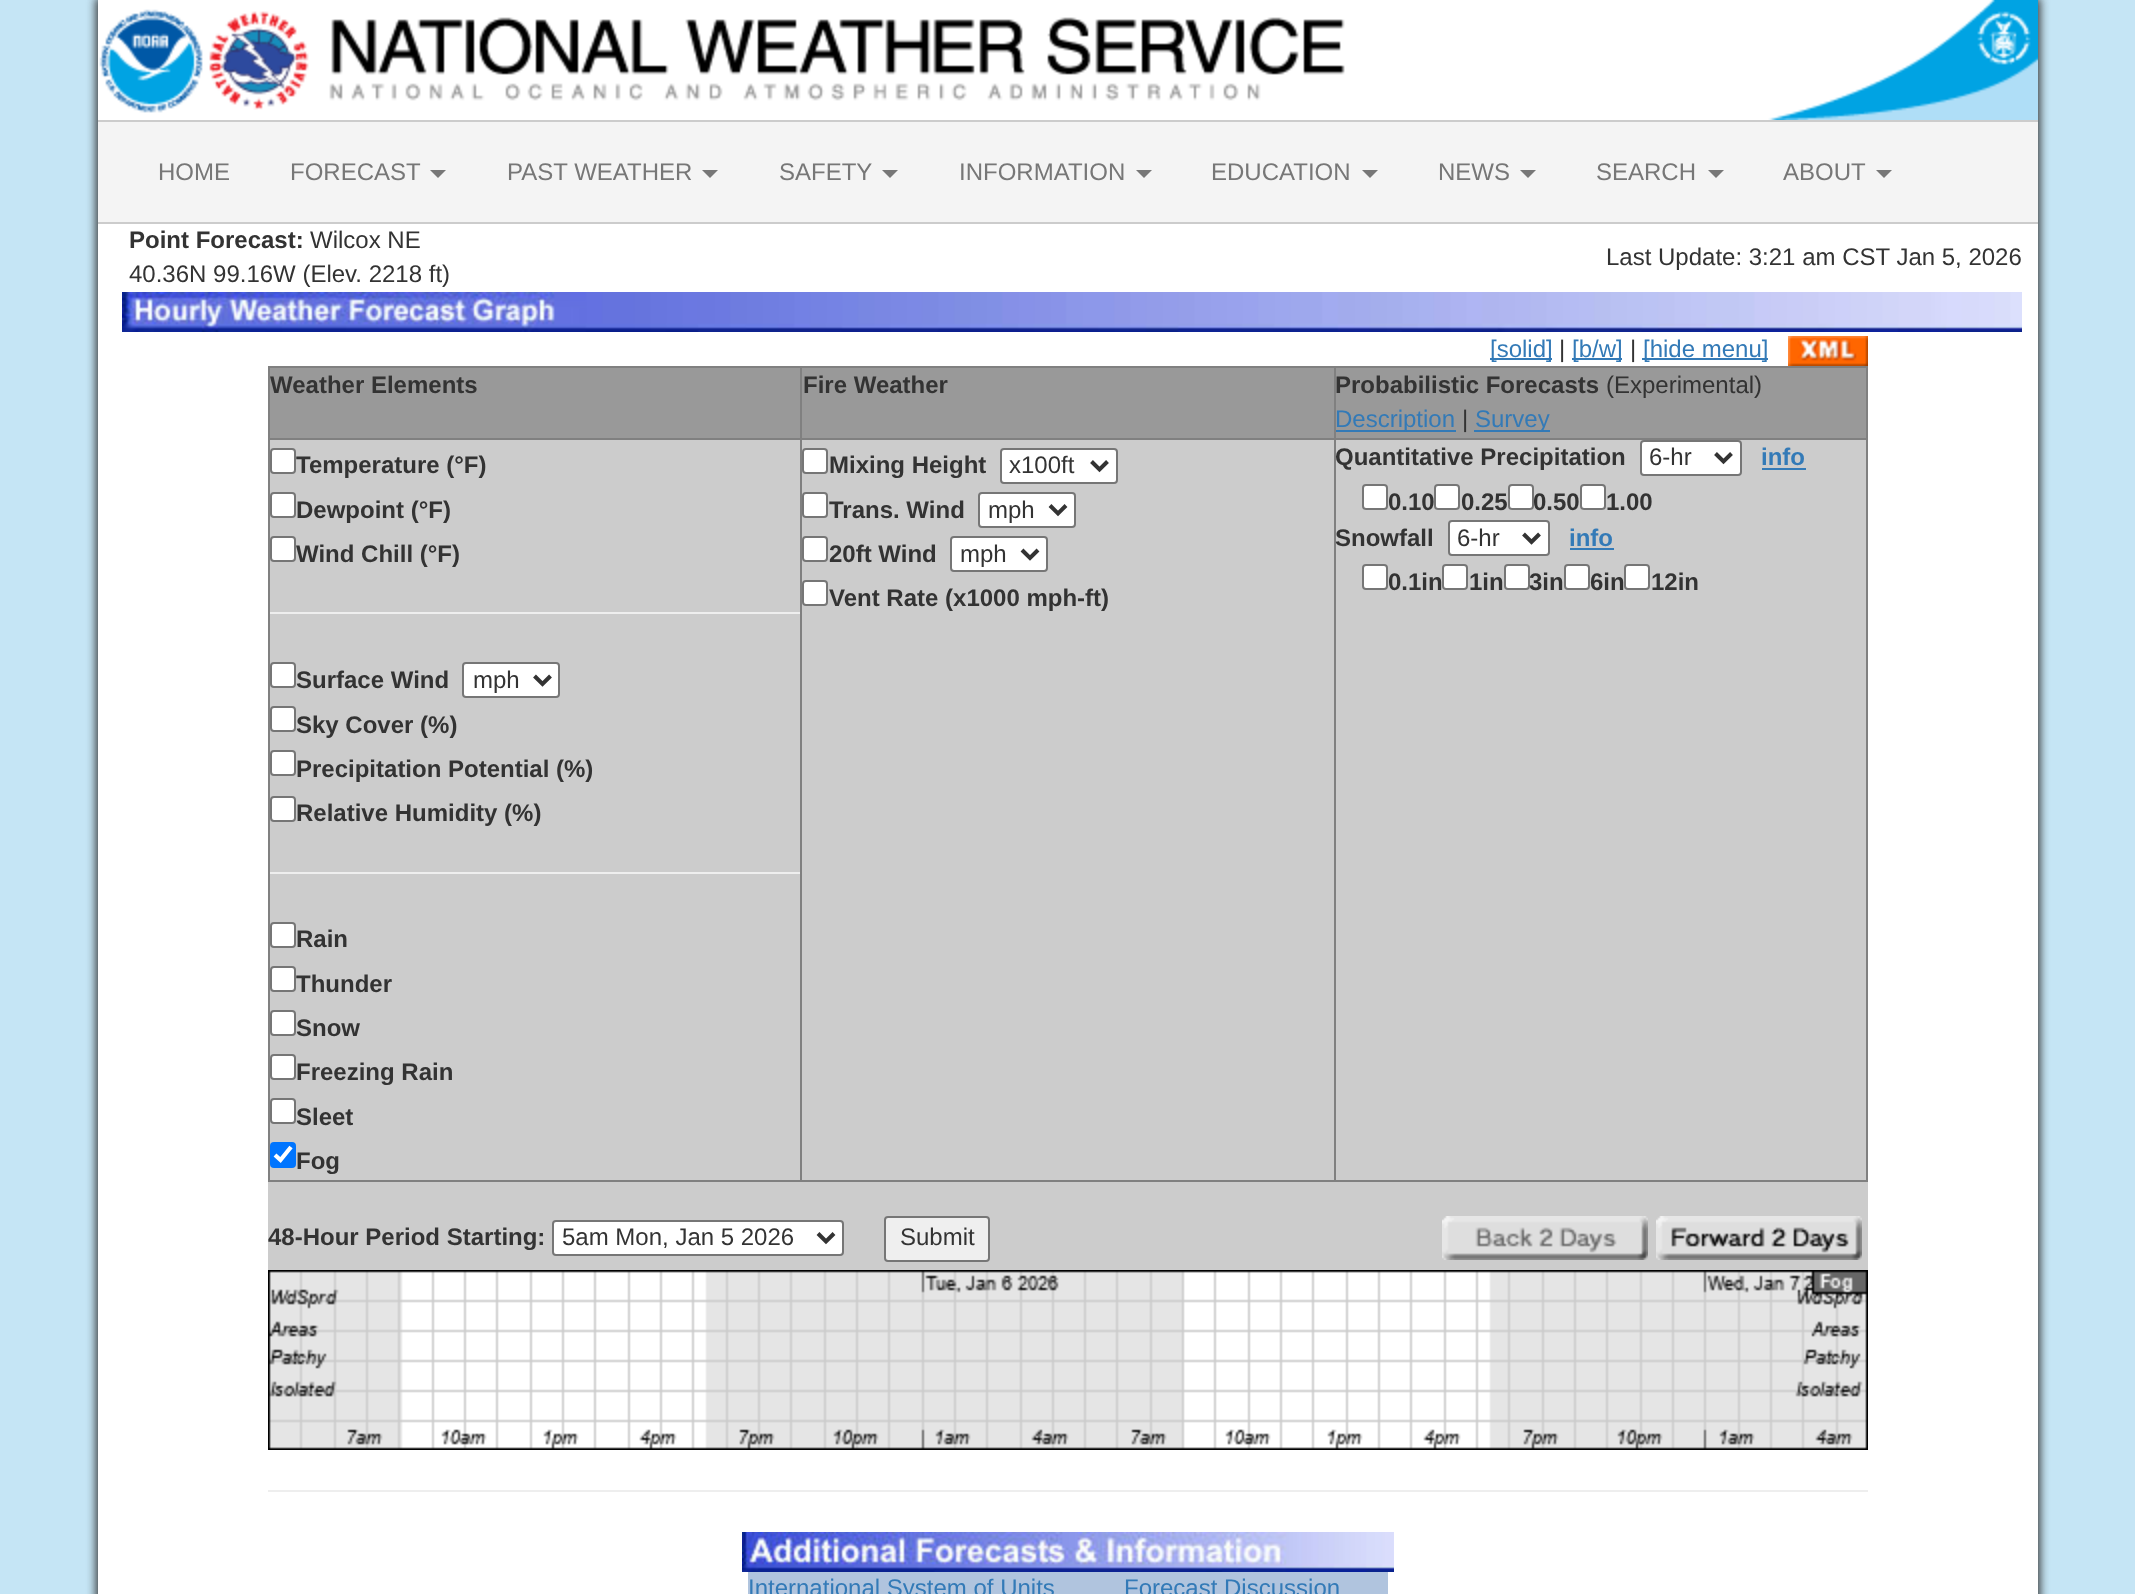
<svg xmlns="http://www.w3.org/2000/svg" width="2135" height="1594" viewBox="0 0 2135 1594">
  <style>
    .t1 { font: 24px Liberation Sans; fill: #777; }
    .t2 { font: bold 24px Liberation Sans; fill: #333; }
    .t3 { font: 24px Liberation Sans; fill: #333; }
    .t4 { font: 24px Liberation Sans; fill: #337ab7; }
    .t5 { font: bold 24px Liberation Sans; fill: #337ab7; }
  </style>
  <rect width="100%" height="100%" fill="#c5e5f5"/>
  <rect x="96" y="-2" width="1944" height="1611" fill="#333" filter="blur(5px)"/>
  <rect x="98" y="0" width="1940" height="1594" fill="#fff"/>
  <image x="99" y="9" width="104" height="104" href="images/1.png"/>
  <image x="209" y="11" width="1136" height="99" href="images/2.png"/>
  <image x="1768" y="0" width="270" height="120" href="images/3.png"/>
  <rect x="98" y="122" width="1940" height="100" fill="#f4f4f4"/>
  <rect x="98" y="120" width="1940" height="2" fill="#ccc"/>
  <rect x="98" y="222" width="1940" height="2" fill="#ccc"/>
  <text x="158" y="180" class="t1">HOME</text>
  <text x="290" y="180" class="t1">FORECAST</text>
  <path d="M430 170H446L438 178Z" fill="#777"/>
  <text x="507" y="180" class="t1">PAST WEATHER</text>
  <path d="M702 170H718L710 178Z" fill="#777"/>
  <text x="779" y="180" class="t1">SAFETY</text>
  <path d="M882 170H898L890 178Z" fill="#777"/>
  <text x="959" y="180" class="t1">INFORMATION</text>
  <path d="M1136 170H1152L1144 178Z" fill="#777"/>
  <text x="1211" y="180" class="t1">EDUCATION</text>
  <path d="M1362 170H1378L1370 178Z" fill="#777"/>
  <text x="1438" y="180" class="t1">NEWS</text>
  <path d="M1520 170H1536L1528 178Z" fill="#777"/>
  <text x="1596" y="180" class="t1">SEARCH</text>
  <path d="M1708 170H1724L1716 178Z" fill="#777"/>
  <text x="1783" y="180" class="t1">ABOUT</text>
  <path d="M1876 170H1892L1884 178Z" fill="#777"/>
  <text x="129" y="248" class="t2">Point Forecast:</text>
  <text x="310" y="248" class="t3">Wilcox NE</text>
  <text x="129" y="282" class="t3">40.36N 99.16W (Elev. 2218 ft)</text>
  <text x="1606" y="265" class="t3">Last Update: 3:21 am CST Jan 5, 2026</text>
  <image x="122" y="292" width="1900" height="40" href="images/4.png"/>
  <rect x="1490" y="358" width="62" height="2" fill="#337ab7"/>
  <text x="1490" y="357" class="t4">[solid]</text>
  <text x="1559" y="357" class="t3">|</text>
  <rect x="1572" y="358" width="50" height="2" fill="#337ab7"/>
  <text x="1572" y="357" class="t4">[b/w]</text>
  <text x="1630" y="357" class="t3">|</text>
  <rect x="1642" y="358" width="126" height="2" fill="#337ab7"/>
  <text x="1643" y="357" class="t4">[hide menu]</text>
  <image x="1788" y="336" width="80" height="30" href="images/5.png"/>
  <rect x="270" y="440" width="1596" height="740" fill="#ccc"/>
  <rect x="268" y="366" width="1600" height="2" fill="#808080"/>
  <rect x="1866" y="366" width="2" height="816" fill="#808080"/>
  <rect x="268" y="1180" width="1600" height="2" fill="#808080"/>
  <rect x="268" y="366" width="2" height="816" fill="#808080"/>
  <rect x="270" y="368" width="530" height="70" fill="#999"/>
  <text x="270" y="393" class="t2">Weather Elements</text>
  <rect x="802" y="368" width="532" height="70" fill="#999"/>
  <rect x="1334" y="438" width="534" height="2" fill="#808080"/>
  <rect x="1334" y="438" width="2" height="744" fill="#808080"/>
  <rect x="800" y="438" width="536" height="2" fill="#808080"/>
  <rect x="800" y="438" width="2" height="744" fill="#808080"/>
  <rect x="268" y="438" width="534" height="2" fill="#808080"/>
  <rect x="800" y="366" width="2" height="74" fill="#808080"/>
  <text x="803" y="393" class="t2">Fire Weather</text>
  <rect x="1336" y="368" width="530" height="70" fill="#999"/>
  <rect x="1334" y="366" width="2" height="74" fill="#808080"/>
  <text x="1335" y="393" class="t2">Probabilistic Forecasts</text>
  <text x="1606" y="393" class="t3">(Experimental)</text>
  <rect x="1336" y="430" width="120" height="2" fill="#337ab7"/>
  <text x="1335" y="427" class="t4">Description</text>
  <text x="1462" y="427" class="t3">|</text>
  <rect x="1474" y="430" width="76" height="2" fill="#337ab7"/>
  <text x="1475" y="427" class="t4">Survey</text>
  <rect x="271" y="449" width="24" height="24" rx="3" fill="#fff" stroke="#767676" stroke-width="2"/>
  <text x="296" y="473" class="t2">Temperature (°F)</text>
  <rect x="271" y="493" width="24" height="24" rx="3" fill="#fff" stroke="#767676" stroke-width="2"/>
  <text x="296" y="518" class="t2">Dewpoint (°F)</text>
  <rect x="271" y="537" width="24" height="24" rx="3" fill="#fff" stroke="#767676" stroke-width="2"/>
  <text x="296" y="562" class="t2">Wind Chill (°F)</text>
  <rect x="270" y="612" width="530" height="2" fill="#eee"/>
  <rect x="271" y="663" width="24" height="24" rx="3" fill="#fff" stroke="#767676" stroke-width="2"/>
  <text x="296" y="688" class="t2">Surface Wind</text>
  <rect x="463" y="663" width="96" height="34" rx="3" fill="#fff" stroke="#767676" stroke-width="2"/>
  <path d="M534.5 676L542.5 684L550.5 676" fill="none" stroke="#333" stroke-width="4"/>
  <text x="473" y="688" class="t3">mph</text>
  <rect x="271" y="707" width="24" height="24" rx="3" fill="#fff" stroke="#767676" stroke-width="2"/>
  <text x="296" y="733" class="t2">Sky Cover (%)</text>
  <rect x="271" y="751" width="24" height="24" rx="3" fill="#fff" stroke="#767676" stroke-width="2"/>
  <text x="296" y="777" class="t2">Precipitation Potential (%)</text>
  <rect x="271" y="797" width="24" height="24" rx="3" fill="#fff" stroke="#767676" stroke-width="2"/>
  <text x="296" y="821" class="t2">Relative Humidity (%)</text>
  <rect x="270" y="872" width="530" height="2" fill="#eee"/>
  <rect x="271" y="923" width="24" height="24" rx="3" fill="#fff" stroke="#767676" stroke-width="2"/>
  <text x="296" y="947" class="t2">Rain</text>
  <rect x="271" y="967" width="24" height="24" rx="3" fill="#fff" stroke="#767676" stroke-width="2"/>
  <text x="296" y="992" class="t2">Thunder</text>
  <rect x="271" y="1011" width="24" height="24" rx="3" fill="#fff" stroke="#767676" stroke-width="2"/>
  <text x="296" y="1036" class="t2">Snow</text>
  <rect x="271" y="1055" width="24" height="24" rx="3" fill="#fff" stroke="#767676" stroke-width="2"/>
  <text x="296" y="1080" class="t2">Freezing Rain</text>
  <rect x="271" y="1099" width="24" height="24" rx="3" fill="#fff" stroke="#767676" stroke-width="2"/>
  <text x="296" y="1125" class="t2">Sleet</text>
  <rect x="270" y="1142" width="26" height="26" rx="4" fill="#0075ff"/>
  <path d="M275 1155L280.5 1160L291 1147" fill="none" stroke="#fff" stroke-width="4.2"/>
  <text x="296" y="1169" class="t2">Fog</text>
  <rect x="803" y="449" width="24" height="24" rx="3" fill="#fff" stroke="#767676" stroke-width="2"/>
  <text x="829" y="473" class="t2">Mixing Height</text>
  <rect x="1001" y="449" width="116" height="34" rx="3" fill="#fff" stroke="#767676" stroke-width="2"/>
  <path d="M1091.5 461.5L1099.5 469.5L1107.5 461.5" fill="none" stroke="#333" stroke-width="4"/>
  <text x="1009" y="473" class="t3">x100ft</text>
  <rect x="803" y="493" width="24" height="24" rx="3" fill="#fff" stroke="#767676" stroke-width="2"/>
  <text x="829" y="518" class="t2">Trans. Wind</text>
  <rect x="979" y="493" width="96" height="34" rx="3" fill="#fff" stroke="#767676" stroke-width="2"/>
  <path d="M1050 505.5L1058 513.5L1066 505.5" fill="none" stroke="#333" stroke-width="4"/>
  <text x="988" y="518" class="t3">mph</text>
  <rect x="803" y="537" width="24" height="24" rx="3" fill="#fff" stroke="#767676" stroke-width="2"/>
  <text x="829" y="562" class="t2">20ft Wind</text>
  <rect x="951" y="537" width="96" height="34" rx="3" fill="#fff" stroke="#767676" stroke-width="2"/>
  <path d="M1022 550L1030 558L1038 550" fill="none" stroke="#333" stroke-width="4"/>
  <text x="960" y="562" class="t3">mph</text>
  <rect x="803" y="581" width="24" height="24" rx="3" fill="#fff" stroke="#767676" stroke-width="2"/>
  <text x="829" y="606" class="t2">Vent Rate (x1000 mph-ft)</text>
  <text x="1335" y="465" class="t2">Quantitative Precipitation</text>
  <rect x="1641" y="441" width="100" height="34" rx="3" fill="#fff" stroke="#767676" stroke-width="2"/>
  <path d="M1715.5 453.5L1723.5 461.5L1731.5 453.5" fill="none" stroke="#333" stroke-width="4"/>
  <text x="1649" y="465" class="t3">6-hr</text>
  <text x="1761" y="465" class="t5">info</text>
  <rect x="1762" y="468" width="44" height="2" fill="#337ab7"/>
  <rect x="1363" y="485" width="24" height="24" rx="3" fill="#fff" stroke="#767676" stroke-width="2"/>
  <text x="1388" y="510" class="t2">0.10</text>
  <rect x="1435" y="485" width="24" height="24" rx="3" fill="#fff" stroke="#767676" stroke-width="2"/>
  <text x="1461" y="510" class="t2">0.25</text>
  <rect x="1509" y="485" width="24" height="24" rx="3" fill="#fff" stroke="#767676" stroke-width="2"/>
  <text x="1533" y="510" class="t2">0.50</text>
  <rect x="1581" y="485" width="24" height="24" rx="3" fill="#fff" stroke="#767676" stroke-width="2"/>
  <text x="1606" y="510" class="t2">1.00</text>
  <text x="1335" y="546" class="t2">Snowfall</text>
  <rect x="1449" y="521" width="100" height="34" rx="3" fill="#fff" stroke="#767676" stroke-width="2"/>
  <path d="M1523.5 534L1531.5 542L1539.5 534" fill="none" stroke="#333" stroke-width="4"/>
  <text x="1457" y="546" class="t3">6-hr</text>
  <text x="1569" y="546" class="t5">info</text>
  <rect x="1570" y="548" width="44" height="2" fill="#337ab7"/>
  <rect x="1363" y="565" width="24" height="24" rx="3" fill="#fff" stroke="#767676" stroke-width="2"/>
  <text x="1388" y="590" class="t2">0.1in</text>
  <rect x="1443" y="565" width="24" height="24" rx="3" fill="#fff" stroke="#767676" stroke-width="2"/>
  <text x="1469" y="590" class="t2">1in</text>
  <rect x="1505" y="565" width="24" height="24" rx="3" fill="#fff" stroke="#767676" stroke-width="2"/>
  <text x="1529" y="590" class="t2">3in</text>
  <rect x="1565" y="565" width="24" height="24" rx="3" fill="#fff" stroke="#767676" stroke-width="2"/>
  <text x="1590" y="590" class="t2">6in</text>
  <rect x="1625" y="565" width="24" height="24" rx="3" fill="#fff" stroke="#767676" stroke-width="2"/>
  <text x="1651" y="590" class="t2">12in</text>
  <rect x="268" y="1182" width="1600" height="88" fill="#ccc"/>
  <text x="268" y="1245" class="t2">48-Hour Period Starting:</text>
  <rect x="553" y="1221" width="290" height="34" rx="3" fill="#fff" stroke="#767676" stroke-width="2"/>
  <path d="M818 1233.5L826 1241.5L834 1233.5" fill="none" stroke="#333" stroke-width="4"/>
  <text x="562" y="1245" class="t3">5am Mon, Jan 5 2026</text>
  <rect x="885" y="1217" width="104" height="44" rx="3" fill="#efefef" stroke="#767676" stroke-width="2"/>
  <text x="900" y="1245" class="t3">Submit</text>
  <image x="1442" y="1216" width="206" height="44" href="images/6.png"/>
  <image x="1656" y="1216" width="206" height="44" href="images/7.png"/>
  <image x="268" y="1270" width="1600" height="180" href="images/8.png"/>
  <rect x="268" y="1490" width="1600" height="2" fill="#eee"/>
  <image x="742" y="1532" width="652" height="40" href="images/9.png"/>
  <rect x="748" y="1572" width="640" height="22" fill="#b0c4de"/>
  <text x="748" y="1596" class="t4">International System of Units</text>
  <text x="1124" y="1596" class="t4">Forecast Discussion</text>
</svg>
